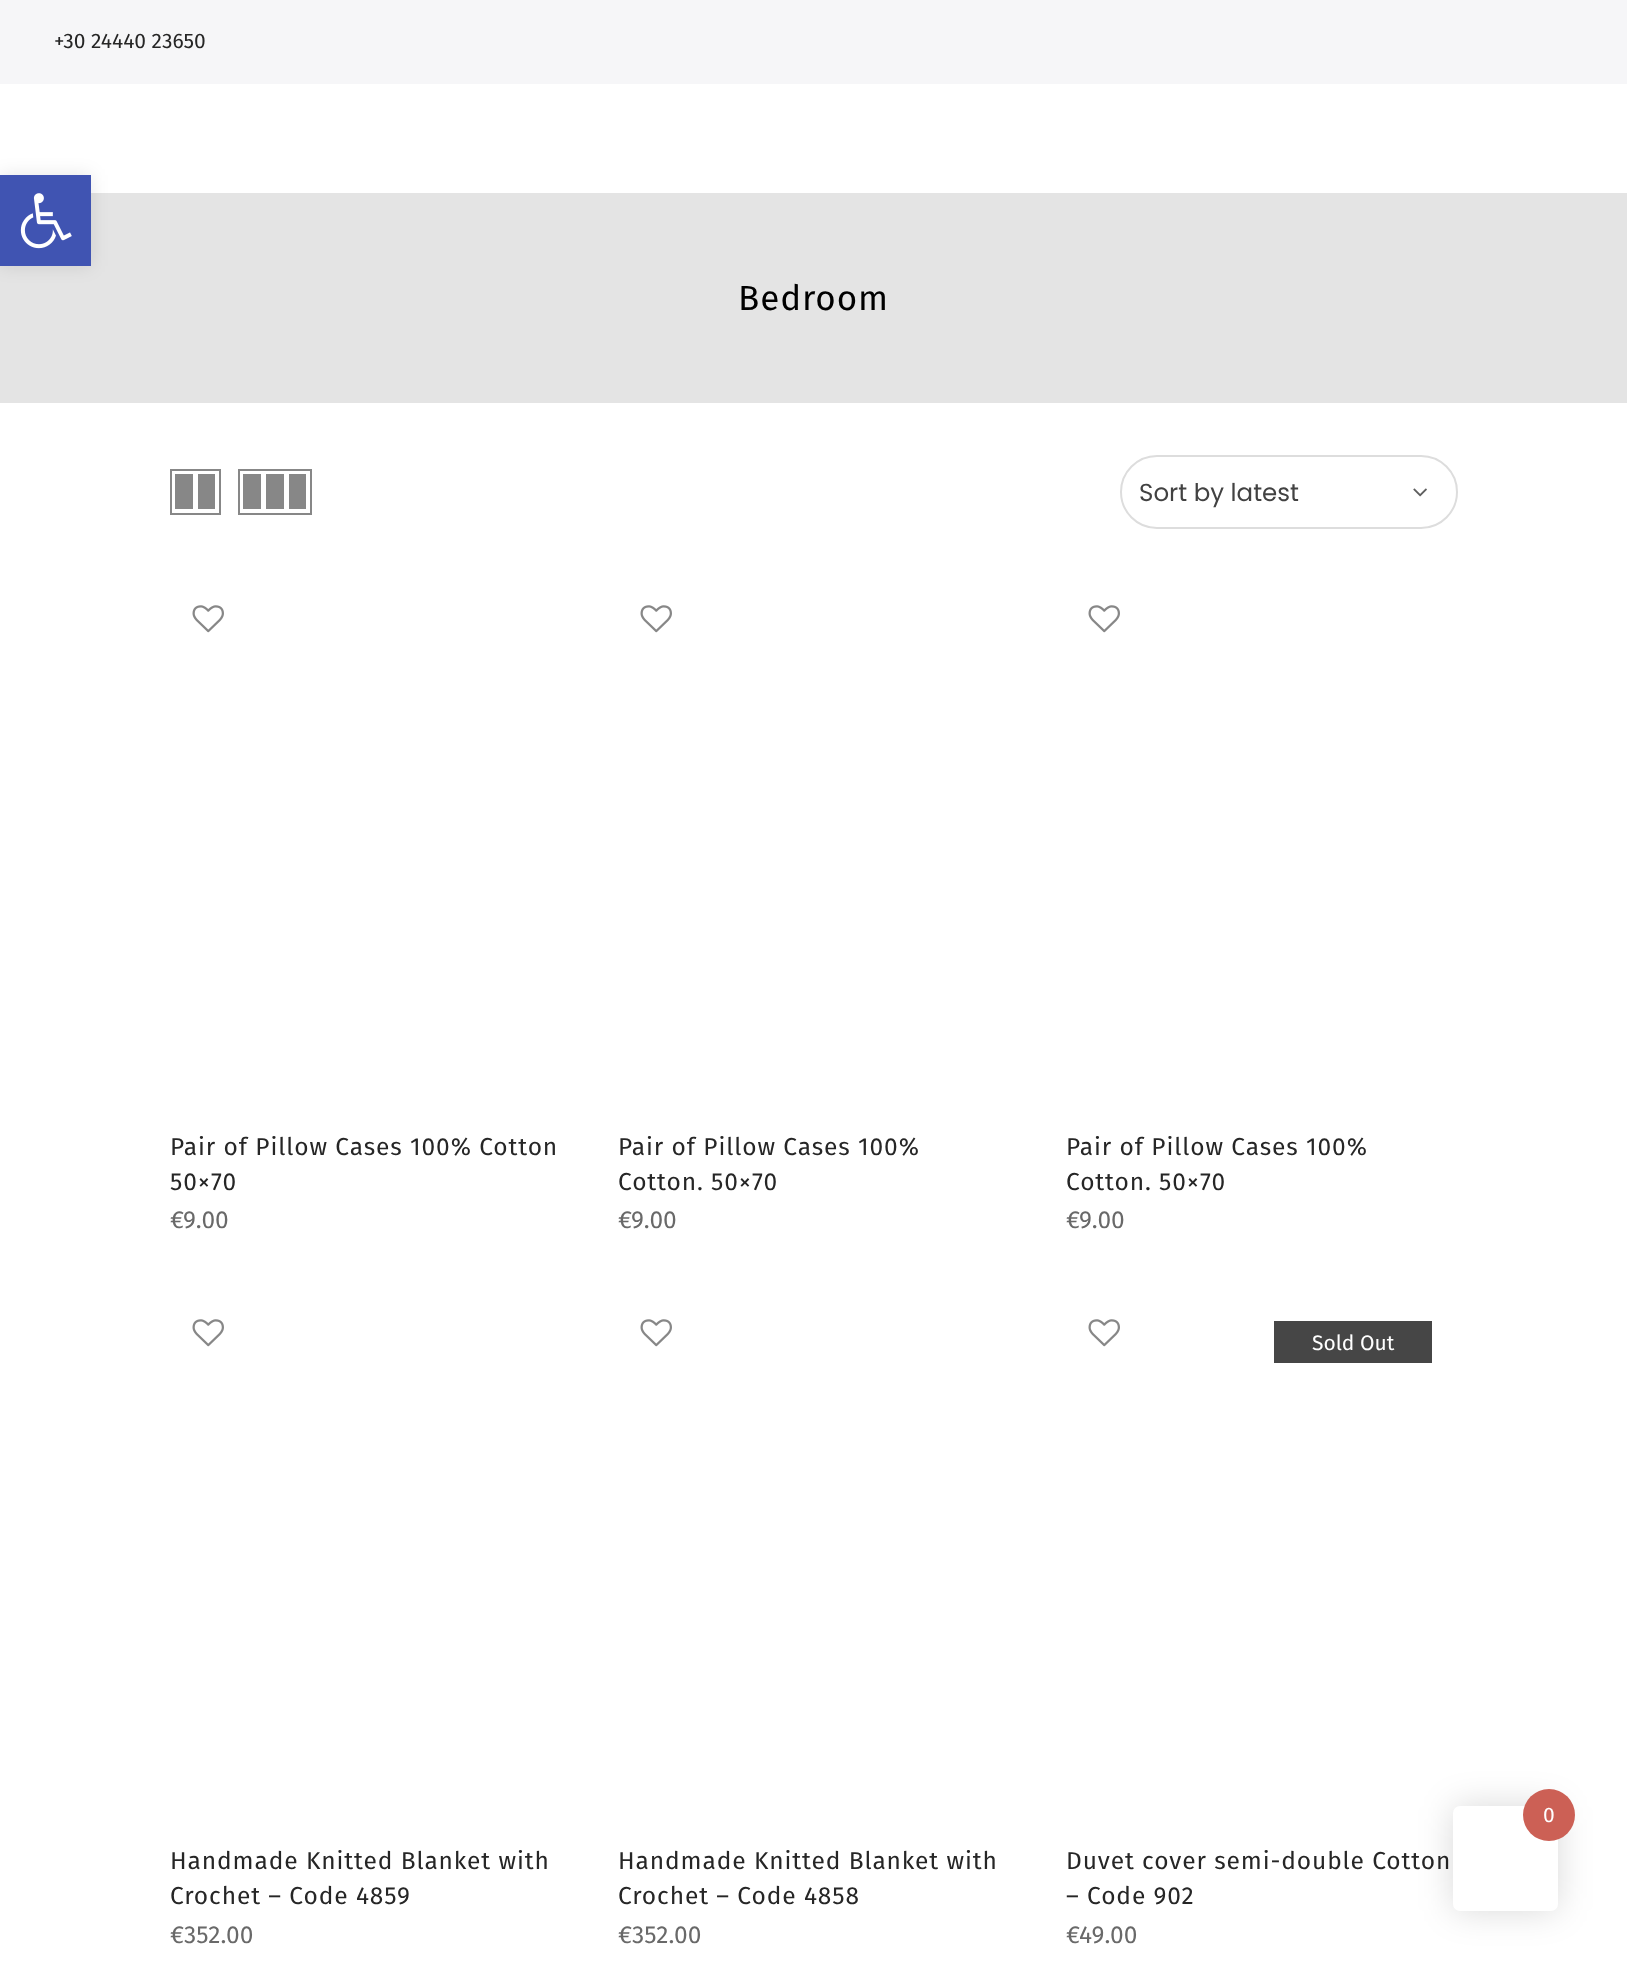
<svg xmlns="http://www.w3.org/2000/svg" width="1627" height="1980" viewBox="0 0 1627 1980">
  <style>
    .t1 { font: 21px Fira Sans; fill: #262626; }
    .t2 { font: 35px Fira Sans; letter-spacing: 0.9px; fill: #000; }
    .t3 { font: 24.5px Poppins; fill: #424242; }
    .t4 { font: 24.5px Fira Sans; letter-spacing: 0.9px; fill: #262626; }
    .t5 { font: 24.5px Fira Sans; fill: #696969; }
    .t6 { font: 21px Fira Sans; fill: #fff; }
  </style>
  <rect width="100%" height="100%" fill="#fff"/>
  <rect x="0" y="0" width="1627" height="84" fill="#f6f6f8"/>
  <text x="54" y="48" class="t1">+30 24440 23650</text>
  <rect x="0" y="193" width="1627" height="210" fill="#e4e4e4"/>
  <rect x="0" y="175" width="91" height="91" fill="#0000001a" filter="blur(9px)"/>
  <rect x="0" y="175" width="91" height="91" fill="#4054b2"/>
  <image x="20" y="193" width="52" height="56" href="images/1.png"/>
  <text x="738" y="310" class="t2">Bedroom</text>
  <rect x="171" y="470" width="49" height="44" fill="none" stroke="#878787" stroke-width="2"/>
  <rect x="198" y="474" width="17" height="35" fill="#878787"/>
  <rect x="175" y="474" width="18" height="35" fill="#878787"/>
  <rect x="239" y="470" width="72" height="44" fill="none" stroke="#878787" stroke-width="2"/>
  <rect x="289" y="474" width="17" height="35" fill="#878787"/>
  <rect x="266" y="474" width="18" height="35" fill="#878787"/>
  <rect x="243" y="474" width="18" height="35" fill="#878787"/>
  <rect x="1121" y="456" width="336" height="72" rx="36" fill="none" stroke="#ddd" stroke-width="2"/>
  <text x="1139" y="501" class="t3">Sort by latest</text>
  <image x="1413" y="488" width="14" height="9" href="images/2.png"/>
  <image x="192" y="605" width="32" height="28" href="images/3.png"/>
  <text x="170" y="1155" class="t4">Pair of Pillow Cases 100% Cotton</text>
  <text x="170" y="1190" class="t4">50×70</text>
  <text x="170" y="1228" class="t5">€</text>
  <text x="183" y="1228" class="t5">9.00</text>
  <image x="640" y="605" width="32" height="28" href="images/3.png"/>
  <text x="618" y="1155" class="t4">Pair of Pillow Cases 100%</text>
  <text x="618" y="1190" class="t4">Cotton. 50×70</text>
  <text x="618" y="1228" class="t5">€</text>
  <text x="631" y="1228" class="t5">9.00</text>
  <image x="1088" y="605" width="32" height="28" href="images/3.png"/>
  <text x="1066" y="1155" class="t4">Pair of Pillow Cases 100%</text>
  <text x="1066" y="1190" class="t4">Cotton. 50×70</text>
  <text x="1066" y="1228" class="t5">€</text>
  <text x="1079" y="1228" class="t5">9.00</text>
  <image x="192" y="1319" width="32" height="28" href="images/3.png"/>
  <text x="170" y="1869" class="t4">Handmade Knitted Blanket with</text>
  <text x="170" y="1904" class="t4">Crochet – Code 4859</text>
  <text x="170" y="1943" class="t5">€352.00</text>
  <image x="640" y="1319" width="32" height="28" href="images/3.png"/>
  <text x="618" y="1869" class="t4">Handmade Knitted Blanket with</text>
  <text x="618" y="1904" class="t4">Crochet – Code 4858</text>
  <text x="618" y="1943" class="t5">€352.00</text>
  <image x="1088" y="1319" width="32" height="28" href="images/3.png"/>
  <rect x="1274" y="1321" width="158" height="42" fill="#464646"/>
  <text x="1312" y="1350" class="t6">Sold Out</text>
  <text x="1066" y="1869" class="t4">Duvet cover semi-double Cotton</text>
  <text x="1066" y="1904" class="t4">– Code 902</text>
  <text x="1066" y="1943" class="t5">€</text>
  <text x="1079" y="1943" class="t5">49.00</text>
  <rect x="1453" y="1806" width="105" height="105" rx="7" fill="#00000026" filter="blur(17.5px)"/>
  <rect x="1453" y="1806" width="105" height="105" rx="7" fill="#fff"/>
  <circle cx="1549" cy="1815" r="26" fill="#cc6055"/>
  <text x="1543" y="1822" class="t6">0</text>
</svg>
